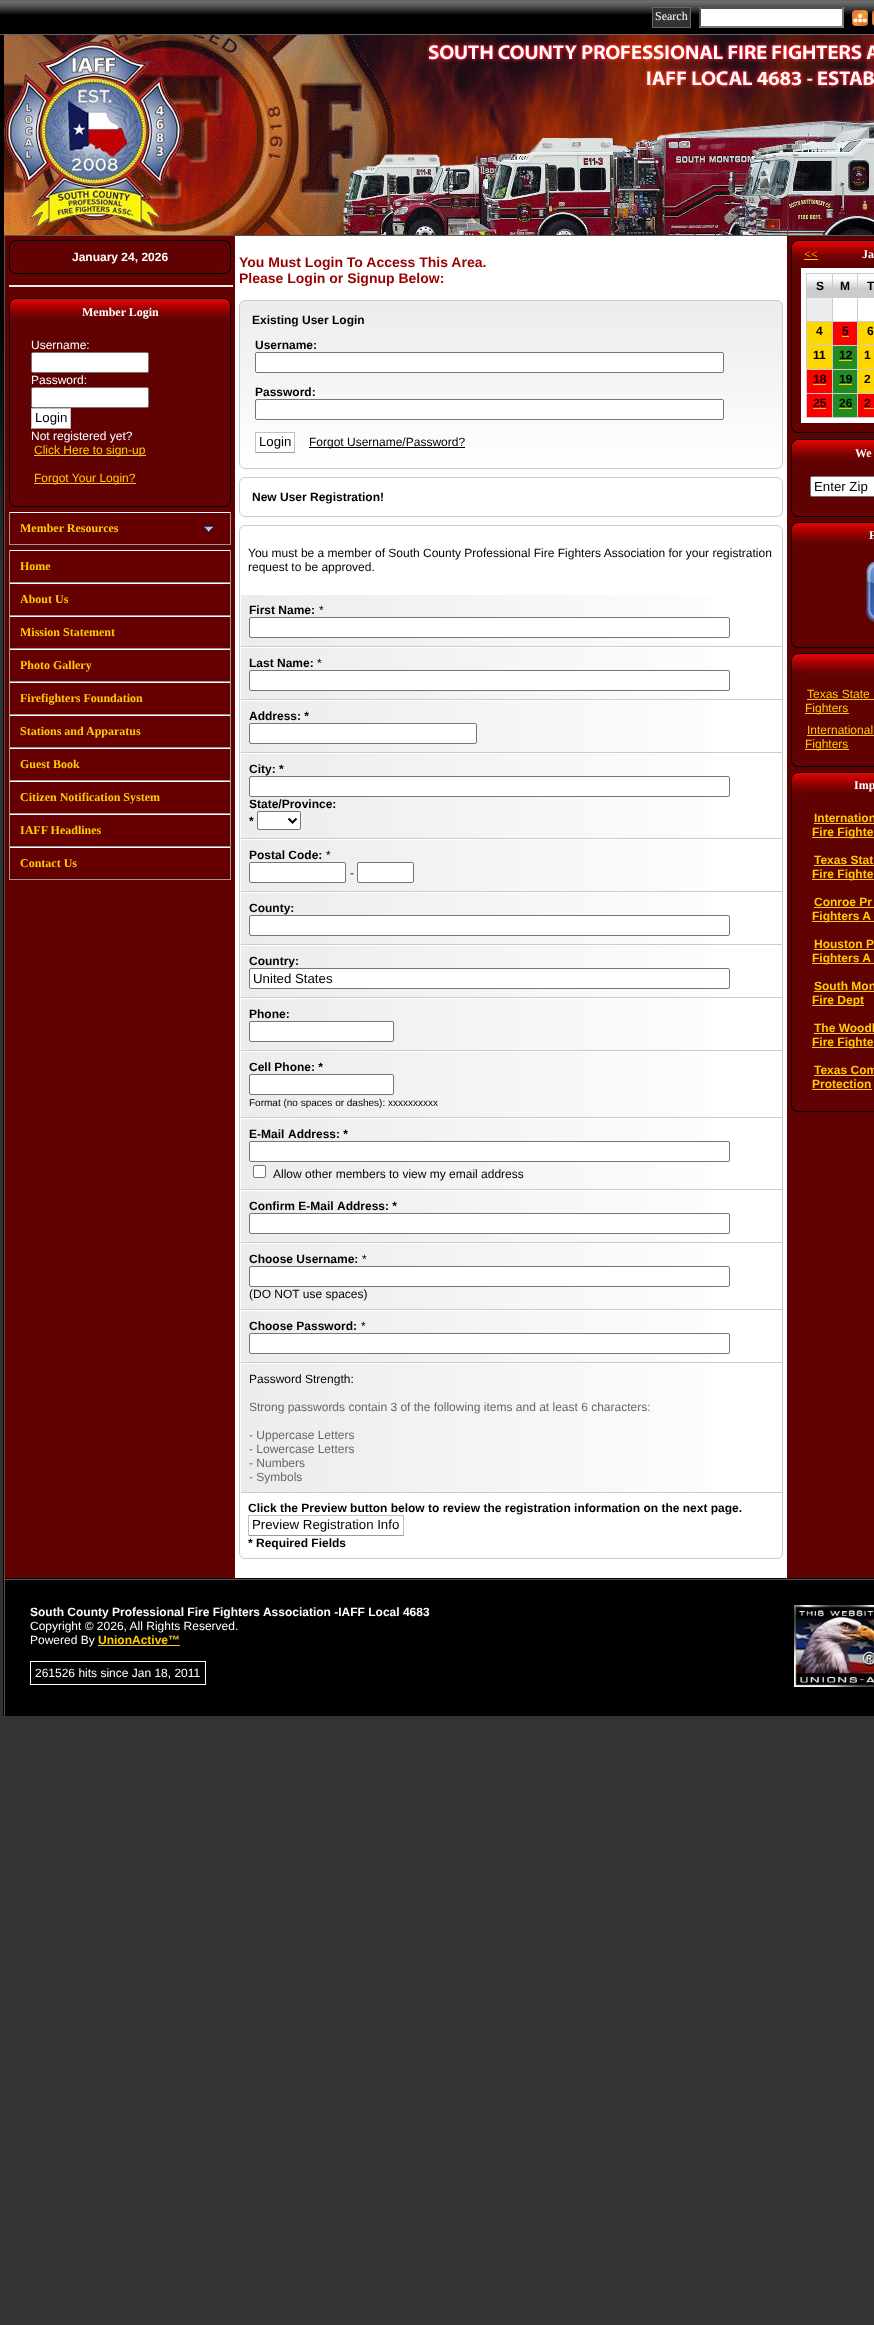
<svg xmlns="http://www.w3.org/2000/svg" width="874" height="2325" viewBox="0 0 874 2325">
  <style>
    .t1 { font: 12px Liberation Serif; fill: #fff; }
    .t2 { font: bold 12px Liberation Sans; fill: #fff; }
    .t3 { font: bold 12px Liberation Serif; fill: #fff; }
    .t4 { font: 12px Liberation Sans; fill: #fff; }
    .t5 { font: 13.25px Liberation Sans; fill: #000; }
    .t6 { font: 12px Liberation Sans; fill: #fc0; }
    .t7 { font: bold 12px Liberation Serif; fill: #fc0; }
    .t8 { font: bold 14px Liberation Sans; fill: #900; }
    .t9 { font: bold 12px Liberation Sans; fill: #000; }
    .t10 { font: 12px Liberation Sans; fill: #000; }
    .t11 { font: 10px Liberation Sans; fill: #000; }
    .t12 { font: 12px Liberation Sans; fill: #666; }
    .t13 { font: 12px Liberation Serif; fill: #fc0; }
    .t14 { font: bold 12px Liberation Sans; fill: #fc0; }
  </style>
  <defs>
    <clipPath id="clip1"><rect x="239" y="300" width="544" height="169" rx="6"/></clipPath>
    <linearGradient id="g1" gradientUnits="userSpaceOnUse" x1="511" y1="301" x2="511" y2="468"><stop offset="0" stop-color="#ececec"/><stop offset="1" stop-color="#fff"/></linearGradient>
    <linearGradient id="g2" gradientUnits="userSpaceOnUse" x1="241" y1="621" x2="782" y2="621"><stop offset="0" stop-color="#ececec"/><stop offset="1" stop-color="#fff"/></linearGradient>
    <linearGradient id="g3" gradientUnits="userSpaceOnUse" x1="241" y1="674" x2="782" y2="674"><stop offset="0" stop-color="#ececec"/><stop offset="1" stop-color="#fff"/></linearGradient>
    <linearGradient id="g4" gradientUnits="userSpaceOnUse" x1="241" y1="727" x2="782" y2="727"><stop offset="0" stop-color="#ececec"/><stop offset="1" stop-color="#fff"/></linearGradient>
    <linearGradient id="g5" gradientUnits="userSpaceOnUse" x1="241" y1="796" x2="782" y2="796"><stop offset="0" stop-color="#ececec"/><stop offset="1" stop-color="#fff"/></linearGradient>
    <linearGradient id="g6" gradientUnits="userSpaceOnUse" x1="241" y1="866" x2="782" y2="866"><stop offset="0" stop-color="#ececec"/><stop offset="1" stop-color="#fff"/></linearGradient>
    <linearGradient id="g7" gradientUnits="userSpaceOnUse" x1="241" y1="919" x2="782" y2="919"><stop offset="0" stop-color="#ececec"/><stop offset="1" stop-color="#fff"/></linearGradient>
    <linearGradient id="g8" gradientUnits="userSpaceOnUse" x1="241" y1="972" x2="782" y2="972"><stop offset="0" stop-color="#ececec"/><stop offset="1" stop-color="#fff"/></linearGradient>
    <linearGradient id="g9" gradientUnits="userSpaceOnUse" x1="241" y1="1025" x2="782" y2="1025"><stop offset="0" stop-color="#ececec"/><stop offset="1" stop-color="#fff"/></linearGradient>
    <linearGradient id="g10" gradientUnits="userSpaceOnUse" x1="241" y1="1085" x2="782" y2="1085"><stop offset="0" stop-color="#ececec"/><stop offset="1" stop-color="#fff"/></linearGradient>
    <linearGradient id="g11" gradientUnits="userSpaceOnUse" x1="241" y1="1154" x2="782" y2="1154"><stop offset="0" stop-color="#ececec"/><stop offset="1" stop-color="#fff"/></linearGradient>
    <linearGradient id="g12" gradientUnits="userSpaceOnUse" x1="241" y1="1217" x2="782" y2="1217"><stop offset="0" stop-color="#ececec"/><stop offset="1" stop-color="#fff"/></linearGradient>
    <linearGradient id="g13" gradientUnits="userSpaceOnUse" x1="241" y1="1277" x2="782" y2="1277"><stop offset="0" stop-color="#ececec"/><stop offset="1" stop-color="#fff"/></linearGradient>
    <linearGradient id="g14" gradientUnits="userSpaceOnUse" x1="241" y1="1337" x2="782" y2="1337"><stop offset="0" stop-color="#ececec"/><stop offset="1" stop-color="#fff"/></linearGradient>
    <linearGradient id="g15" gradientUnits="userSpaceOnUse" x1="241" y1="1428" x2="782" y2="1428"><stop offset="0" stop-color="#ececec"/><stop offset="1" stop-color="#fff"/></linearGradient>
  </defs>
  <rect width="100%" height="100%" fill="#333"/>
  <image x="0" y="35" width="4" height="526" href="images/1.png"/>
  <image x="0" y="1" width="874" height="33" href="images/2.png"/>
  <rect x="0" y="0" width="874" height="1" fill="#666"/>
  <rect x="0" y="34" width="874" height="1" fill="#666"/>
  <rect x="652.5" y="7.5" width="38" height="20" fill="#333" stroke="#666"/>
  <text x="655" y="20" class="t1">Search</text>
  <rect x="699" y="7" width="145" height="21" fill="#fff"/>
  <path d="M699 7H844L842 9H701Z" fill="#4f4f4f"/>
  <path d="M844 7V28L842 26V9Z" fill="#767676"/>
  <path d="M844 28H699L701 26H842Z" fill="#767676"/>
  <path d="M699 28V7L701 9V26Z" fill="#4f4f4f"/>
  <image x="852" y="10" width="16" height="16" href="images/3.png"/>
  <image x="872" y="10" width="2" height="16" href="images/4.png"/>
  <image x="4" y="35" width="870" height="200" href="images/5.png"/>
  <rect x="3" y="318" width="1" height="1398" fill="#000"/>
  <rect x="4" y="235" width="870" height="1" fill="#555"/>
  <rect x="4" y="1578" width="870" height="1" fill="#000"/>
  <rect x="4" y="235" width="1" height="1344" fill="#555"/>
  <rect x="235" y="236" width="552" height="1342" fill="#fff"/>
  <rect x="5" y="236" width="230" height="1342" fill="#600202"/>
  <image x="9" y="240" width="10" height="10" href="images/6.png"/>
  <rect x="19" y="240" width="202" height="1" fill="#030000"/>
  <image x="221" y="240" width="10" height="10" href="images/7.png"/>
  <rect x="9" y="250" width="1" height="14" fill="#030000"/>
  <text x="72" y="261" class="t2">January 24, 2026</text>
  <rect x="230" y="250" width="1" height="14" fill="#030000"/>
  <image x="9" y="264" width="10" height="10" href="images/8.png"/>
  <rect x="19" y="273" width="202" height="1" fill="#030000"/>
  <image x="221" y="264" width="10" height="10" href="images/9.png"/>
  <rect x="9" y="285" width="224" height="2" fill="#ececec"/>
  <image x="9" y="298" width="10" height="28" href="images/10.png"/>
  <image x="19" y="298" width="202" height="21" href="images/11.png"/>
  <text x="82" y="316" class="t3">Member Login</text>
  <image x="221" y="298" width="10" height="28" href="images/12.png"/>
  <rect x="9" y="326" width="1" height="171" fill="#030000"/>
  <text x="31" y="349" class="t4">Username:</text>
  <rect x="31.5" y="352.5" width="117" height="20" rx="1.5" fill="#fff" stroke="#767676"/>
  <text x="31" y="384" class="t4">Password:</text>
  <rect x="31.5" y="387.5" width="117" height="20" rx="1.5" fill="#fff" stroke="#767676"/>
  <rect x="32" y="409" width="38" height="19" fill="#fff"/>
  <rect x="31" y="408" width="40" height="1" fill="#c0c0c0"/>
  <rect x="70" y="408" width="1" height="21" fill="#c0c0c0"/>
  <rect x="31" y="428" width="40" height="1" fill="#9b9b9b"/>
  <rect x="31" y="408" width="1" height="21" fill="#c0c0c0"/>
  <text x="35" y="422" class="t5">Login</text>
  <text x="31" y="440" class="t4">Not registered yet?</text>
  <rect x="34" y="455" width="112" height="1" fill="#fc0"/>
  <text x="34" y="454" class="t6">Click Here to sign-up</text>
  <rect x="34" y="483" width="102" height="1" fill="#fc0"/>
  <text x="34" y="482" class="t6">Forgot Your Login?</text>
  <rect x="230" y="326" width="1" height="171" fill="#030000"/>
  <image x="9" y="497" width="10" height="10" href="images/8.png"/>
  <rect x="19" y="506" width="202" height="1" fill="#030000"/>
  <image x="221" y="497" width="10" height="10" href="images/9.png"/>
  <rect x="10" y="513" width="220" height="31" fill="#600"/>
  <rect x="230" y="512" width="1" height="33" fill="#999"/>
  <rect x="9" y="512" width="1" height="33" fill="#999"/>
  <image x="204" y="526" width="9" height="6" href="images/13.png"/>
  <rect x="10" y="512" width="220" height="1" fill="#fff"/>
  <rect x="10" y="544" width="220" height="1" fill="#999"/>
  <text x="20" y="532" class="t7">Member Resources</text>
  <rect x="10" y="551" width="220" height="328" fill="#600"/>
  <rect x="230" y="550" width="1" height="330" fill="#999"/>
  <rect x="9" y="550" width="1" height="330" fill="#999"/>
  <rect x="10" y="550" width="220" height="1" fill="#fff"/>
  <rect x="10" y="582" width="220" height="1" fill="#999"/>
  <text x="20" y="570" class="t7">Home</text>
  <rect x="10" y="583" width="220" height="1" fill="#fff"/>
  <rect x="10" y="615" width="220" height="1" fill="#999"/>
  <text x="20" y="603" class="t7">About Us</text>
  <rect x="10" y="616" width="220" height="1" fill="#fff"/>
  <rect x="10" y="648" width="220" height="1" fill="#999"/>
  <text x="20" y="636" class="t7">Mission Statement</text>
  <rect x="10" y="649" width="220" height="1" fill="#fff"/>
  <rect x="10" y="681" width="220" height="1" fill="#999"/>
  <text x="20" y="669" class="t7">Photo Gallery</text>
  <rect x="10" y="682" width="220" height="1" fill="#fff"/>
  <rect x="10" y="714" width="220" height="1" fill="#999"/>
  <text x="20" y="702" class="t7">Firefighters Foundation</text>
  <rect x="10" y="715" width="220" height="1" fill="#fff"/>
  <rect x="10" y="747" width="220" height="1" fill="#999"/>
  <text x="20" y="735" class="t7">Stations and Apparatus</text>
  <rect x="10" y="748" width="220" height="1" fill="#fff"/>
  <rect x="10" y="780" width="220" height="1" fill="#999"/>
  <text x="20" y="768" class="t7">Guest Book</text>
  <rect x="10" y="781" width="220" height="1" fill="#fff"/>
  <rect x="10" y="813" width="220" height="1" fill="#999"/>
  <text x="20" y="801" class="t7">Citizen Notification System</text>
  <rect x="10" y="814" width="220" height="1" fill="#fff"/>
  <rect x="10" y="846" width="220" height="1" fill="#999"/>
  <text x="20" y="834" class="t7">IAFF Headlines</text>
  <rect x="10" y="847" width="220" height="1" fill="#fff"/>
  <rect x="10" y="879" width="220" height="1" fill="#999"/>
  <text x="20" y="867" class="t7">Contact Us</text>
  <text x="239" y="267" class="t8">You Must Login To Access This Area.</text>
  <text x="239" y="283" class="t8">Please Login or Signup Below:</text>
  <g clip-path="url(#clip1)">
    <rect x="239" y="301" width="544" height="167" fill="url(#g1)"/>
  </g>
  <rect x="239.5" y="300.5" width="543" height="168" rx="5.5" fill="none" stroke="#ccc"/>
  <text x="252" y="324" class="t9">Existing User Login</text>
  <text x="255" y="349" class="t9">Username:</text>
  <rect x="255.5" y="352.5" width="468" height="20" rx="1.5" fill="#fff" stroke="#767676"/>
  <text x="255" y="396" class="t9">Password:</text>
  <rect x="255.5" y="399.5" width="468" height="20" rx="1.5" fill="#fff" stroke="#767676"/>
  <rect x="256" y="433" width="38" height="13" fill="#fff"/>
  <rect x="255" y="432" width="40" height="1" fill="#c0c0c0"/>
  <rect x="294" y="432" width="1" height="21" fill="#c0c0c0"/>
  <rect x="255" y="452" width="40" height="1" fill="#9b9b9b"/>
  <rect x="255" y="432" width="1" height="21" fill="#c0c0c0"/>
  <text x="259" y="446" class="t5">Login</text>
  <rect x="309" y="447" width="156" height="1" fill="#000"/>
  <text x="309" y="446" class="t10">Forgot Username/Password?</text>
  <rect x="239.5" y="477.5" width="543" height="39" rx="5.5" fill="none" stroke="#ccc"/>
  <text x="252" y="501" class="t9">New User Registration!</text>
  <rect x="239.5" y="525.5" width="543" height="1033" rx="5.5" fill="none" stroke="#ccc"/>
  <text x="248" y="557" class="t10">You must be a member of South County Professional Fire Fighters Association for your registration</text>
  <text x="248" y="571" class="t10">request to be approved.</text>
  <rect x="241" y="595" width="470" height="51" fill="url(#g2)"/>
  <rect x="240" y="646" width="542" height="1" fill="#ccc"/>
  <rect x="240" y="646" width="1" height="1" fill="#fff"/>
  <text x="249" y="614" class="t9">First Name:</text>
  <text x="319" y="614" class="t10">*</text>
  <rect x="249.5" y="617.5" width="480" height="20" rx="1.5" fill="#fff" stroke="#767676"/>
  <rect x="241" y="648" width="470" height="51" fill="url(#g3)"/>
  <rect x="240" y="699" width="542" height="1" fill="#ccc"/>
  <rect x="240" y="699" width="1" height="1" fill="#fff"/>
  <text x="249" y="667" class="t9">Last Name:</text>
  <text x="317" y="667" class="t10">*</text>
  <rect x="249.5" y="670.5" width="480" height="20" rx="1.5" fill="#fff" stroke="#767676"/>
  <rect x="241" y="701" width="470" height="51" fill="url(#g4)"/>
  <rect x="240" y="752" width="542" height="1" fill="#ccc"/>
  <rect x="240" y="752" width="1" height="1" fill="#fff"/>
  <text x="249" y="720" class="t9">Address: *</text>
  <rect x="249.5" y="723.5" width="227" height="20" rx="1.5" fill="#fff" stroke="#767676"/>
  <rect x="241" y="754" width="470" height="84" fill="url(#g5)"/>
  <rect x="240" y="838" width="542" height="1" fill="#ccc"/>
  <rect x="240" y="838" width="1" height="1" fill="#fff"/>
  <text x="249" y="773" class="t9">City: *</text>
  <rect x="249.5" y="776.5" width="480" height="20" rx="1.5" fill="#fff" stroke="#767676"/>
  <text x="249" y="808" class="t9">State/Province:</text>
  <text x="249" y="825" class="t9">*</text>
  <rect x="257.5" y="811.5" width="43" height="18" rx="1.5" fill="#fff" stroke="#767676"/>
  <path d="M288.5 818.5L292.5 822.5L296.5 818.5" fill="none" stroke="#000" stroke-width="2"/>
  <rect x="241" y="840" width="470" height="51" fill="url(#g6)"/>
  <rect x="240" y="891" width="542" height="1" fill="#ccc"/>
  <rect x="240" y="891" width="1" height="1" fill="#fff"/>
  <text x="249" y="859" class="t9">Postal Code:</text>
  <text x="326" y="859" class="t10">*</text>
  <rect x="249.5" y="862.5" width="96" height="20" rx="1.5" fill="#fff" stroke="#767676"/>
  <text x="350" y="877" class="t10">-</text>
  <rect x="357.5" y="862.5" width="56" height="20" rx="1.5" fill="#fff" stroke="#767676"/>
  <rect x="241" y="893" width="470" height="51" fill="url(#g7)"/>
  <rect x="240" y="944" width="542" height="1" fill="#ccc"/>
  <rect x="240" y="944" width="1" height="1" fill="#fff"/>
  <text x="249" y="912" class="t9">County:</text>
  <rect x="249.5" y="915.5" width="480" height="20" rx="1.5" fill="#fff" stroke="#767676"/>
  <rect x="241" y="946" width="470" height="51" fill="url(#g8)"/>
  <rect x="240" y="997" width="542" height="1" fill="#ccc"/>
  <rect x="240" y="997" width="1" height="1" fill="#fff"/>
  <text x="249" y="965" class="t9">Country:</text>
  <rect x="249.5" y="968.5" width="480" height="20" rx="1.5" fill="#fff" stroke="#767676"/>
  <text x="253" y="983" class="t5">United States</text>
  <rect x="241" y="999" width="470" height="51" fill="url(#g9)"/>
  <rect x="240" y="1050" width="542" height="1" fill="#ccc"/>
  <rect x="240" y="1050" width="1" height="1" fill="#fff"/>
  <text x="249" y="1018" class="t9">Phone:</text>
  <rect x="249.5" y="1021.5" width="144" height="20" rx="1.5" fill="#fff" stroke="#767676"/>
  <rect x="241" y="1052" width="470" height="65" fill="url(#g10)"/>
  <rect x="240" y="1117" width="542" height="1" fill="#ccc"/>
  <rect x="240" y="1117" width="1" height="1" fill="#fff"/>
  <text x="249" y="1071" class="t9">Cell Phone: *</text>
  <rect x="249.5" y="1074.5" width="144" height="20" rx="1.5" fill="#fff" stroke="#767676"/>
  <text x="249" y="1106" class="t11">Format (no spaces or dashes): xxxxxxxxxx</text>
  <rect x="241" y="1119" width="470" height="70" fill="url(#g11)"/>
  <rect x="240" y="1189" width="542" height="1" fill="#ccc"/>
  <rect x="240" y="1189" width="1" height="1" fill="#fff"/>
  <text x="249" y="1138" class="t9">E-Mail</text>
  <text x="288" y="1138" class="t9">Address: *</text>
  <rect x="249.5" y="1141.5" width="480" height="20" rx="1.5" fill="#fff" stroke="#767676"/>
  <rect x="253.5" y="1165.5" width="12" height="12" rx="1.5" fill="#fff" stroke="#767676"/>
  <text x="273" y="1178" class="t10">Allow other members to view my email address</text>
  <rect x="241" y="1191" width="470" height="51" fill="url(#g12)"/>
  <rect x="240" y="1242" width="542" height="1" fill="#ccc"/>
  <rect x="240" y="1242" width="1" height="1" fill="#fff"/>
  <text x="249" y="1210" class="t9">Confirm E-Mail</text>
  <text x="337" y="1210" class="t9">Address: *</text>
  <rect x="249.5" y="1213.5" width="480" height="20" rx="1.5" fill="#fff" stroke="#767676"/>
  <rect x="241" y="1244" width="470" height="65" fill="url(#g13)"/>
  <rect x="240" y="1309" width="542" height="1" fill="#ccc"/>
  <rect x="240" y="1309" width="1" height="1" fill="#fff"/>
  <text x="249" y="1263" class="t9">Choose Username:</text>
  <text x="362" y="1263" class="t10">*</text>
  <rect x="249.5" y="1266.5" width="480" height="20" rx="1.5" fill="#fff" stroke="#767676"/>
  <text x="249" y="1298" class="t10">(DO NOT use spaces)</text>
  <rect x="241" y="1311" width="470" height="51" fill="url(#g14)"/>
  <rect x="240" y="1362" width="542" height="1" fill="#ccc"/>
  <rect x="240" y="1362" width="1" height="1" fill="#fff"/>
  <text x="249" y="1330" class="t9">Choose Password:</text>
  <text x="361" y="1330" class="t10">*</text>
  <rect x="249.5" y="1333.5" width="480" height="20" rx="1.5" fill="#fff" stroke="#767676"/>
  <rect x="241" y="1364" width="470" height="128" fill="url(#g15)"/>
  <rect x="240" y="1492" width="542" height="1" fill="#ccc"/>
  <rect x="240" y="1492" width="1" height="1" fill="#fff"/>
  <text x="249" y="1383" class="t10">Password Strength:</text>
  <text x="249" y="1411" class="t12">Strong passwords contain 3 of the following items and at least 6 characters:</text>
  <text x="249" y="1439" class="t12">- Uppercase Letters</text>
  <text x="249" y="1453" class="t12">- Lowercase Letters</text>
  <text x="249" y="1467" class="t12">- Numbers</text>
  <text x="249" y="1481" class="t12">- Symbols</text>
  <text x="248" y="1512" class="t9">Click the Preview button below to review the registration information on the next page.</text>
  <rect x="248" y="1515" width="156" height="1" fill="#c0c0c0"/>
  <rect x="403" y="1515" width="1" height="21" fill="#c0c0c0"/>
  <rect x="248" y="1535" width="156" height="1" fill="#9b9b9b"/>
  <rect x="248" y="1515" width="1" height="21" fill="#c0c0c0"/>
  <text x="252" y="1529" class="t5">Preview Registration Info</text>
  <text x="248" y="1547" class="t9">* Required Fields</text>
  <rect x="787" y="236" width="87" height="1342" fill="#600202"/>
  <image x="791" y="240" width="10" height="28" href="images/10.png"/>
  <image x="801" y="240" width="73" height="21" href="images/14.png"/>
  <text x="804" y="258" class="t13">&lt;&lt;</text>
  <rect x="804" y="259" width="14" height="1" fill="#fc0"/>
  <text x="862" y="258" class="t3">Ja</text>
  <rect x="791" y="268" width="1" height="155" fill="#030000"/>
  <rect x="801" y="268" width="73" height="155" fill="#fff"/>
  <rect x="806" y="273" width="68" height="145" fill="#ccc"/>
  <image x="807" y="274" width="25" height="14" href="images/15.png"/>
  <text x="816" y="290" class="t9">S</text>
  <image x="833" y="274" width="24" height="14" href="images/16.png"/>
  <text x="840" y="290" class="t9">M</text>
  <image x="858" y="274" width="16" height="14" href="images/17.png"/>
  <text x="867" y="290" class="t9">T</text>
  <rect x="807" y="298" width="25" height="23" fill="#ececec"/>
  <rect x="833" y="298" width="24" height="23" fill="#fff"/>
  <rect x="858" y="298" width="16" height="23" fill="#fff"/>
  <rect x="807" y="322" width="25" height="23" fill="#ffd700"/>
  <text x="816" y="335" class="t9">4</text>
  <rect x="816" y="336" width="7" height="1" fill="#fc0"/>
  <rect x="833" y="322" width="24" height="23" fill="#f00"/>
  <text x="842" y="335" class="t9">5</text>
  <rect x="842" y="336" width="7" height="1" fill="#fc0"/>
  <rect x="858" y="322" width="16" height="23" fill="#ffd700"/>
  <text x="867" y="335" class="t9">6</text>
  <rect x="867" y="336" width="7" height="1" fill="#fc0"/>
  <rect x="807" y="346" width="25" height="23" fill="#ffd700"/>
  <text x="813" y="359" class="t9">11</text>
  <rect x="813" y="360" width="13" height="1" fill="#fc0"/>
  <rect x="833" y="346" width="24" height="23" fill="#228b22"/>
  <text x="839" y="359" class="t9">12</text>
  <rect x="839" y="360" width="13" height="1" fill="#fc0"/>
  <rect x="858" y="346" width="16" height="23" fill="#ffd700"/>
  <text x="864" y="359" class="t9">1</text>
  <rect x="864" y="360" width="10" height="1" fill="#fc0"/>
  <rect x="807" y="370" width="25" height="23" fill="#f00"/>
  <text x="813" y="383" class="t9">18</text>
  <rect x="813" y="384" width="13" height="1" fill="#fc0"/>
  <rect x="833" y="370" width="24" height="23" fill="#228b22"/>
  <text x="839" y="383" class="t9">19</text>
  <rect x="839" y="384" width="13" height="1" fill="#fc0"/>
  <rect x="858" y="370" width="16" height="23" fill="#ffd700"/>
  <text x="864" y="383" class="t9">2</text>
  <rect x="864" y="384" width="10" height="1" fill="#fc0"/>
  <rect x="807" y="394" width="25" height="23" fill="#f00"/>
  <text x="813" y="407" class="t9">25</text>
  <rect x="813" y="408" width="13" height="1" fill="#fc0"/>
  <rect x="833" y="394" width="24" height="23" fill="#228b22"/>
  <text x="839" y="407" class="t9">26</text>
  <rect x="839" y="408" width="13" height="1" fill="#fc0"/>
  <rect x="858" y="394" width="16" height="23" fill="#f00"/>
  <text x="864" y="407" class="t9">2</text>
  <rect x="864" y="408" width="10" height="1" fill="#fc0"/>
  <image x="791" y="423" width="10" height="10" href="images/8.png"/>
  <rect x="801" y="432" width="73" height="1" fill="#030000"/>
  <image x="791" y="439" width="10" height="28" href="images/10.png"/>
  <image x="801" y="439" width="73" height="21" href="images/14.png"/>
  <text x="855" y="457" class="t3">We</text>
  <rect x="791" y="467" width="1" height="40" fill="#030000"/>
  <rect x="810.5" y="476.5" width="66" height="20" rx="1.5" fill="#fff" stroke="#767676"/>
  <text x="814" y="491" class="t5">Enter Zip</text>
  <image x="791" y="507" width="10" height="10" href="images/8.png"/>
  <rect x="801" y="516" width="73" height="1" fill="#030000"/>
  <image x="791" y="522" width="10" height="28" href="images/10.png"/>
  <image x="801" y="522" width="73" height="21" href="images/14.png"/>
  <text x="869" y="539" class="t3">F</text>
  <rect x="791" y="550" width="1" height="88" fill="#030000"/>
  <image x="866" y="560" width="8" height="63" href="images/18.png"/>
  <image x="791" y="638" width="10" height="10" href="images/8.png"/>
  <rect x="801" y="647" width="73" height="1" fill="#030000"/>
  <image x="791" y="653" width="10" height="28" href="images/10.png"/>
  <image x="801" y="653" width="73" height="21" href="images/14.png"/>
  <rect x="791" y="681" width="1" height="76" fill="#030000"/>
  <text x="807" y="698" class="t6">Texas State</text>
  <rect x="807" y="699" width="67" height="1" fill="#fc0"/>
  <rect x="805" y="713" width="44" height="1" fill="#fc0"/>
  <text x="805" y="712" class="t6">Fighters</text>
  <text x="807" y="734" class="t6">International</text>
  <rect x="807" y="735" width="67" height="1" fill="#fc0"/>
  <rect x="805" y="749" width="44" height="1" fill="#fc0"/>
  <text x="805" y="748" class="t6">Fighters</text>
  <image x="791" y="757" width="10" height="10" href="images/8.png"/>
  <rect x="801" y="766" width="73" height="1" fill="#030000"/>
  <image x="791" y="772" width="10" height="28" href="images/10.png"/>
  <image x="801" y="772" width="73" height="21" href="images/14.png"/>
  <text x="854" y="789" class="t3">Imp</text>
  <rect x="791" y="800" width="1" height="302" fill="#030000"/>
  <text x="814" y="822" class="t14">Internation</text>
  <rect x="814" y="823" width="60" height="1" fill="#fc0"/>
  <rect x="812" y="837" width="62" height="1" fill="#fc0"/>
  <text x="812" y="836" class="t14">Fire Fighte</text>
  <text x="814" y="864" class="t14">Texas Stat</text>
  <rect x="814" y="865" width="60" height="1" fill="#fc0"/>
  <rect x="812" y="879" width="62" height="1" fill="#fc0"/>
  <text x="812" y="878" class="t14">Fire Fighte</text>
  <text x="814" y="906" class="t14">Conroe Pr</text>
  <rect x="814" y="907" width="60" height="1" fill="#fc0"/>
  <rect x="812" y="921" width="62" height="1" fill="#fc0"/>
  <text x="812" y="920" class="t14">Fighters A</text>
  <text x="814" y="948" class="t14">Houston P</text>
  <rect x="814" y="949" width="60" height="1" fill="#fc0"/>
  <rect x="812" y="963" width="62" height="1" fill="#fc0"/>
  <text x="812" y="962" class="t14">Fighters A</text>
  <text x="814" y="990" class="t14">South Mon</text>
  <rect x="814" y="991" width="60" height="1" fill="#fc0"/>
  <rect x="812" y="1005" width="52" height="1" fill="#fc0"/>
  <text x="812" y="1004" class="t14">Fire Dept</text>
  <text x="814" y="1032" class="t14">The Woodl</text>
  <rect x="814" y="1033" width="60" height="1" fill="#fc0"/>
  <rect x="812" y="1047" width="62" height="1" fill="#fc0"/>
  <text x="812" y="1046" class="t14">Fire Fighte</text>
  <text x="814" y="1074" class="t14">Texas Com</text>
  <rect x="814" y="1075" width="60" height="1" fill="#fc0"/>
  <text x="812" y="1088" class="t14">Protection</text>
  <rect x="812" y="1089" width="60" height="1" fill="#fc0"/>
  <image x="791" y="1102" width="10" height="10" href="images/8.png"/>
  <rect x="801" y="1111" width="73" height="1" fill="#030000"/>
  <rect x="4" y="1579" width="870" height="1" fill="#555"/>
  <rect x="4" y="1715" width="870" height="1" fill="#000"/>
  <rect x="4" y="1579" width="1" height="137" fill="#555"/>
  <rect x="5" y="1580" width="869" height="135" fill="#000"/>
  <text x="30" y="1616" class="t2">South County Professional Fire Fighters Association -IAFF Local 4683</text>
  <text x="30" y="1630" class="t4">Copyright © 2026, All Rights Reserved.</text>
  <text x="30" y="1644" class="t4">Powered By</text>
  <text x="98" y="1644" class="t14">UnionActive™</text>
  <rect x="98" y="1645" width="82" height="1" fill="#fc0"/>
  <rect x="30.5" y="1661.5" width="175" height="23" fill="none" stroke="#fff"/>
  <text x="35" y="1677" class="t4">261526 hits since Jan 18, 2011</text>
  <image x="794" y="1605" width="80" height="82" href="images/19.png"/>
</svg>
